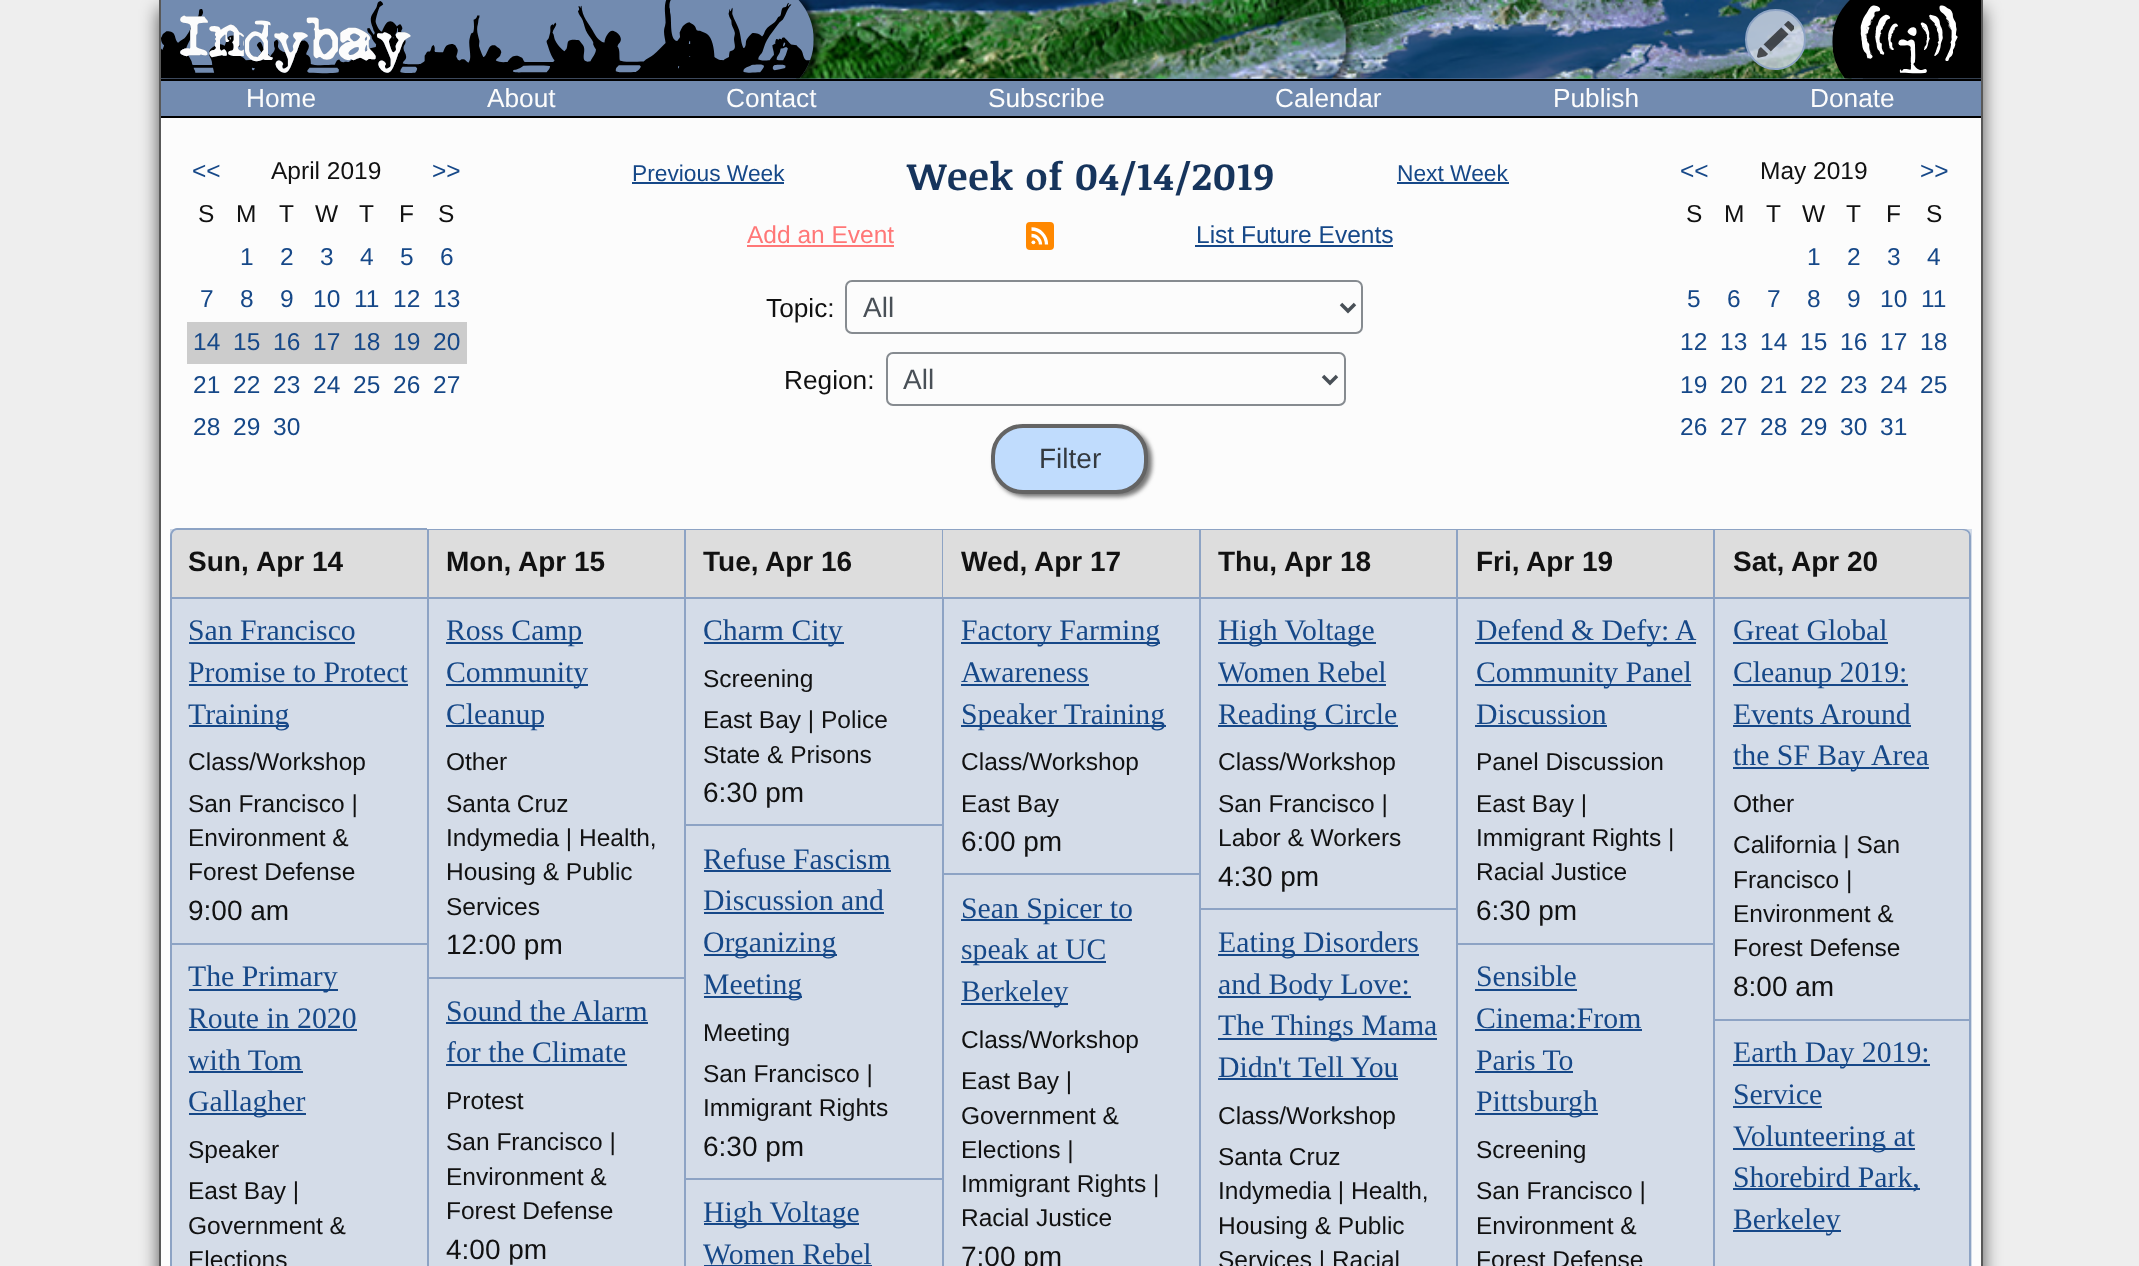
<svg xmlns="http://www.w3.org/2000/svg" width="2139" height="1266" viewBox="0 0 2139 1266">
  <style>
    .t1 { font: 61.5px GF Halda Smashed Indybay; fill: #4e5f78; }
    .t2 { font: 61.5px GF Halda Smashed Indybay; fill: #fcfcfc; }
    .t3 { font: 26.25px Liberation Sans; fill: #fcfcfc; }
    .t4 { font: 24.5px Liberation Sans; fill: #164888; }
    .t5 { font: 24.5px Liberation Sans; fill: #111; }
    .t6 { font: 22.75px Liberation Sans; fill: #164888; }
    .t7 { font: bold 38.5px Noticia Text; letter-spacing: 0.9px; fill: #16345c; }
    .t8 { font: 24.5px Liberation Sans; fill: #f77; }
    .t9 { font: 26.25px Liberation Sans; fill: #111; }
    .t10 { font: 28px Liberation Sans; fill: #495057; }
    .t11 { font: 28px Liberation Sans; fill: #343a40; }
    .t12 { font: bold 28px Liberation Sans; fill: #111; }
    .t13 { font: 29.75px Liberation Serif; fill: #164888; }
    .t14 { font: 28px Liberation Sans; fill: #111; }
  </style>
  <rect width="100%" height="100%" fill="#eee"/>
  <rect x="159" y="9" width="1824" height="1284" fill="#000000a6" filter="blur(9px)"/>
  <rect x="161" y="118" width="1820" height="1148" fill="#fcfcfc"/>
  <rect x="1981" y="0" width="2" height="1266" fill="#585858"/>
  <rect x="159" y="0" width="2" height="1266" fill="#585858"/>
  <rect x="161" y="78" width="1820" height="1" fill="#728bb0"/>
  <rect x="161" y="79" width="1820" height="2" fill="#000"/>
  <image x="796" y="0" width="1056" height="79" href="images/4.png"/>
  <image x="161" y="0" width="664" height="79" href="images/1.png"/>
  <text x="178" y="61" class="t1">Indybay</text>
  <text x="178" y="61" class="t2">Indybay</text>
  <circle cx="1775.5" cy="39.5" r="29.5" fill="#d4dce8cc" stroke="#8da3c4" stroke-width="2"/>
  <image x="1757" y="21" width="37" height="37" href="images/2.png"/>
  <image x="1831" y="0" width="150" height="79" href="images/3.png"/>
  <rect x="161" y="81" width="1820" height="35" fill="#728bb0"/>
  <rect x="161" y="116" width="1820" height="2" fill="#000"/>
  <text x="246" y="107" class="t3">Home</text>
  <text x="487" y="107" class="t3">About</text>
  <text x="726" y="107" class="t3">Contact</text>
  <text x="988" y="107" class="t3">Subscribe</text>
  <text x="1275" y="107" class="t3">Calendar</text>
  <text x="1553" y="107" class="t3">Publish</text>
  <text x="1810" y="107" class="t3">Donate</text>
  <text x="192" y="179" class="t4">&lt;&lt;</text>
  <text x="271" y="179" class="t5">April 2019</text>
  <text x="432" y="179" class="t4">&gt;&gt;</text>
  <text x="198" y="222" class="t5">S</text>
  <text x="236" y="222" class="t5">M</text>
  <text x="279" y="222" class="t5">T</text>
  <text x="315" y="222" class="t5">W</text>
  <text x="359" y="222" class="t5">T</text>
  <text x="399" y="222" class="t5">F</text>
  <text x="438" y="222" class="t5">S</text>
  <text x="240" y="265" class="t4">1</text>
  <text x="280" y="265" class="t4">2</text>
  <text x="320" y="265" class="t4">3</text>
  <text x="360" y="265" class="t4">4</text>
  <text x="400" y="265" class="t4">5</text>
  <text x="440" y="265" class="t4">6</text>
  <text x="200" y="307" class="t4">7</text>
  <text x="240" y="307" class="t4">8</text>
  <text x="280" y="307" class="t4">9</text>
  <text x="313" y="307" class="t4">10</text>
  <text x="354" y="307" class="t4">11</text>
  <text x="393" y="307" class="t4">12</text>
  <text x="433" y="307" class="t4">13</text>
  <rect x="187" y="322" width="280" height="42" fill="#ccc"/>
  <text x="193" y="350" class="t4">14</text>
  <text x="233" y="350" class="t4">15</text>
  <text x="273" y="350" class="t4">16</text>
  <text x="313" y="350" class="t4">17</text>
  <text x="353" y="350" class="t4">18</text>
  <text x="393" y="350" class="t4">19</text>
  <text x="433" y="350" class="t4">20</text>
  <text x="193" y="393" class="t4">21</text>
  <text x="233" y="393" class="t4">22</text>
  <text x="273" y="393" class="t4">23</text>
  <text x="313" y="393" class="t4">24</text>
  <text x="353" y="393" class="t4">25</text>
  <text x="393" y="393" class="t4">26</text>
  <text x="433" y="393" class="t4">27</text>
  <text x="193" y="435" class="t4">28</text>
  <text x="233" y="435" class="t4">29</text>
  <text x="273" y="435" class="t4">30</text>
  <text x="632" y="181" class="t6">Previous Week</text>
  <rect x="632" y="182" width="152" height="2" fill="#164888"/>
  <text x="907" y="190" class="t7">Week of 04/14/2019</text>
  <text x="1397" y="181" class="t6">Next Week</text>
  <rect x="1397" y="182" width="112" height="2" fill="#164888"/>
  <text x="747" y="243" class="t8">Add an Event</text>
  <rect x="747" y="245" width="147" height="2" fill="#f77"/>
  <rect x="1026" y="222" width="28" height="28" rx="4" fill="#f80"/>
  <circle cx="1033.4" cy="242.3" r="1.9" fill="#fff"/>
  <path d="M1031.5 235.5C1036.5 235.5 1040.5 239.5 1040.5 244.5M1046.5 244.5C1046.5 236 1040 229 1031.5 229" fill="none" stroke="#fff" stroke-width="3.3"/>
  <text x="1196" y="243" class="t4">List Future Events</text>
  <rect x="1195" y="245" width="198" height="2" fill="#164888"/>
  <text x="766" y="317" class="t9">Topic:</text>
  <rect x="846" y="281" width="516" height="52" rx="6" fill="none" stroke="#868b90" stroke-width="2"/>
  <path d="M1341 304L1348 311L1355 304" fill="none" stroke="#495057" stroke-width="3.5"/>
  <text x="863" y="317" class="t10">All</text>
  <text x="784" y="389" class="t9">Region:</text>
  <rect x="887" y="353" width="458" height="52" rx="6" fill="none" stroke="#868b90" stroke-width="2"/>
  <path d="M1323 376L1330 383L1337 376" fill="none" stroke="#495057" stroke-width="3.5"/>
  <text x="903" y="389" class="t10">All</text>
  <rect x="994" y="427" width="158" height="70" rx="32" fill="#777" filter="blur(2px)"/>
  <rect x="993" y="426" width="153" height="66" rx="30" fill="#c0dcfd" stroke="#646464" stroke-width="4"/>
  <text x="1039" y="468" class="t11">Filter</text>
  <text x="1680" y="179" class="t4">&lt;&lt;</text>
  <text x="1760" y="179" class="t5">May 2019</text>
  <text x="1920" y="179" class="t4">&gt;&gt;</text>
  <text x="1686" y="222" class="t5">S</text>
  <text x="1724" y="222" class="t5">M</text>
  <text x="1766" y="222" class="t5">T</text>
  <text x="1802" y="222" class="t5">W</text>
  <text x="1846" y="222" class="t5">T</text>
  <text x="1886" y="222" class="t5">F</text>
  <text x="1926" y="222" class="t5">S</text>
  <text x="1807" y="265" class="t4">1</text>
  <text x="1847" y="265" class="t4">2</text>
  <text x="1887" y="265" class="t4">3</text>
  <text x="1927" y="265" class="t4">4</text>
  <text x="1687" y="307" class="t4">5</text>
  <text x="1727" y="307" class="t4">6</text>
  <text x="1767" y="307" class="t4">7</text>
  <text x="1807" y="307" class="t4">8</text>
  <text x="1847" y="307" class="t4">9</text>
  <text x="1880" y="307" class="t4">10</text>
  <text x="1921" y="307" class="t4">11</text>
  <text x="1680" y="350" class="t4">12</text>
  <text x="1720" y="350" class="t4">13</text>
  <text x="1760" y="350" class="t4">14</text>
  <text x="1800" y="350" class="t4">15</text>
  <text x="1840" y="350" class="t4">16</text>
  <text x="1880" y="350" class="t4">17</text>
  <text x="1920" y="350" class="t4">18</text>
  <text x="1680" y="393" class="t4">19</text>
  <text x="1720" y="393" class="t4">20</text>
  <text x="1760" y="393" class="t4">21</text>
  <text x="1800" y="393" class="t4">22</text>
  <text x="1840" y="393" class="t4">23</text>
  <text x="1880" y="393" class="t4">24</text>
  <text x="1920" y="393" class="t4">25</text>
  <text x="1680" y="435" class="t4">26</text>
  <text x="1720" y="435" class="t4">27</text>
  <text x="1760" y="435" class="t4">28</text>
  <text x="1800" y="435" class="t4">29</text>
  <text x="1840" y="435" class="t4">30</text>
  <text x="1880" y="435" class="t4">31</text>
  <rect x="170" y="529" width="1802" height="737" fill="#d4dce8"/>
  <path d="M177 528H427V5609H177C173 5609 170 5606 170 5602V536C170 532 173 528 177 528ZM177 530H427V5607H177C174 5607 172 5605 172 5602V536C172 533 174 530 177 530Z" fill="#8da3c4" fill-rule="evenodd"/>
  <path d="M179 530H427V599H172V537C172 533 175 530 179 530Z" fill="#ddd"/>
  <rect x="172" y="597" width="255" height="2" fill="#8da3c4"/>
  <text x="188" y="571" class="t12">Sun,</text>
  <text x="256" y="571" class="t12">Apr 14</text>
  <rect x="172" y="943" width="255" height="2" fill="#8da3c4"/>
  <text x="188" y="640" class="t13">San Francisco</text>
  <rect x="189" y="642" width="166" height="2" fill="#164888"/>
  <text x="188" y="682" class="t13">Promise to Protect</text>
  <rect x="189" y="684" width="219" height="2" fill="#164888"/>
  <rect x="189" y="725" width="100" height="2" fill="#164888"/>
  <text x="188" y="724" class="t13">Training</text>
  <text x="188" y="770" class="t5">Class/Workshop</text>
  <text x="188" y="812" class="t5">San Francisco |</text>
  <text x="188" y="846" class="t5">Environment &amp;</text>
  <text x="188" y="880" class="t5">Forest Defense</text>
  <text x="188" y="920" class="t14">9:00 am</text>
  <rect x="189" y="989" width="149" height="2" fill="#164888"/>
  <text x="188" y="986" class="t13">The Primary</text>
  <text x="188" y="1028" class="t13">Route in 2020</text>
  <rect x="189" y="1029" width="168" height="2" fill="#164888"/>
  <text x="188" y="1070" class="t13">with Tom</text>
  <rect x="189" y="1071" width="114" height="2" fill="#164888"/>
  <rect x="189" y="1113" width="117" height="2" fill="#164888"/>
  <text x="188" y="1111" class="t13">Gallagher</text>
  <text x="188" y="1158" class="t5">Speaker</text>
  <text x="188" y="1199" class="t5">East Bay |</text>
  <text x="188" y="1234" class="t5">Government &amp;</text>
  <text x="188" y="1268" class="t5">Elections</text>
  <rect x="427" y="529" width="1286" height="1" fill="#8da3c4"/>
  <rect x="427" y="529" width="2" height="737" fill="#8da3c4"/>
  <rect x="429" y="530" width="255" height="67" fill="#ddd"/>
  <rect x="429" y="597" width="255" height="2" fill="#8da3c4"/>
  <text x="446" y="571" class="t12">Mon,</text>
  <text x="518" y="571" class="t12">Apr 15</text>
  <rect x="429" y="977" width="255" height="2" fill="#8da3c4"/>
  <rect x="446" y="642" width="137" height="2" fill="#164888"/>
  <text x="446" y="640" class="t13">Ross Camp</text>
  <rect x="446" y="684" width="142" height="2" fill="#164888"/>
  <text x="446" y="682" class="t13">Community</text>
  <rect x="446" y="725" width="98" height="2" fill="#164888"/>
  <text x="446" y="724" class="t13">Cleanup</text>
  <text x="446" y="770" class="t5">Other</text>
  <text x="446" y="812" class="t5">Santa Cruz</text>
  <text x="446" y="846" class="t5">Indymedia | Health,</text>
  <text x="446" y="880" class="t5">Housing &amp; Public</text>
  <text x="446" y="915" class="t5">Services</text>
  <text x="446" y="954" class="t14">12:00 pm</text>
  <text x="446" y="1021" class="t13">Sound the Alarm</text>
  <rect x="446" y="1022" width="202" height="2" fill="#164888"/>
  <text x="446" y="1062" class="t13">for the Climate</text>
  <rect x="446" y="1064" width="181" height="2" fill="#164888"/>
  <text x="446" y="1109" class="t5">Protest</text>
  <text x="446" y="1150" class="t5">San Francisco |</text>
  <text x="446" y="1185" class="t5">Environment &amp;</text>
  <text x="446" y="1219" class="t5">Forest Defense</text>
  <text x="446" y="1259" class="t14">4:00 pm</text>
  <rect x="684" y="529" width="2" height="737" fill="#8da3c4"/>
  <rect x="686" y="530" width="256" height="67" fill="#ddd"/>
  <rect x="686" y="597" width="256" height="2" fill="#8da3c4"/>
  <text x="703" y="571" class="t12">Tue,</text>
  <text x="765" y="571" class="t12">Apr 16</text>
  <rect x="686" y="824" width="256" height="2" fill="#8da3c4"/>
  <rect x="704" y="642" width="140" height="2" fill="#164888"/>
  <text x="703" y="640" class="t13">Charm City</text>
  <text x="703" y="687" class="t5">Screening</text>
  <text x="703" y="728" class="t5">East Bay | Police</text>
  <text x="703" y="763" class="t5">State &amp; Prisons</text>
  <text x="703" y="802" class="t14">6:30 pm</text>
  <rect x="686" y="1178" width="256" height="2" fill="#8da3c4"/>
  <text x="703" y="869" class="t13">Refuse Fascism</text>
  <rect x="704" y="870" width="187" height="2" fill="#164888"/>
  <text x="703" y="910" class="t13">Discussion and</text>
  <rect x="704" y="912" width="180" height="2" fill="#164888"/>
  <rect x="704" y="954" width="133" height="2" fill="#164888"/>
  <text x="703" y="952" class="t13">Organizing</text>
  <rect x="704" y="996" width="98" height="2" fill="#164888"/>
  <text x="703" y="994" class="t13">Meeting</text>
  <text x="703" y="1041" class="t5">Meeting</text>
  <text x="703" y="1082" class="t5">San Francisco |</text>
  <text x="703" y="1116" class="t5">Immigrant Rights</text>
  <text x="703" y="1156" class="t14">6:30 pm</text>
  <rect x="704" y="1223" width="155" height="2" fill="#164888"/>
  <text x="703" y="1222" class="t13">High Voltage</text>
  <text x="703" y="1264" class="t13">Women Rebel</text>
  <rect x="704" y="1265" width="168" height="1" fill="#164888"/>
  <rect x="942" y="529" width="2" height="737" fill="#8da3c4"/>
  <rect x="943" y="530" width="256" height="67" fill="#ddd"/>
  <rect x="943" y="597" width="256" height="2" fill="#8da3c4"/>
  <text x="961" y="571" class="t12">Wed,</text>
  <text x="1034" y="571" class="t12">Apr 17</text>
  <rect x="943" y="873" width="256" height="2" fill="#8da3c4"/>
  <rect x="961" y="642" width="199" height="2" fill="#164888"/>
  <text x="961" y="640" class="t13">Factory Farming</text>
  <text x="961" y="682" class="t13">Awareness</text>
  <rect x="961" y="684" width="128" height="2" fill="#164888"/>
  <rect x="961" y="725" width="205" height="2" fill="#164888"/>
  <text x="961" y="724" class="t13">Speaker Training</text>
  <text x="961" y="770" class="t5">Class/Workshop</text>
  <text x="961" y="812" class="t5">East Bay</text>
  <text x="961" y="851" class="t14">6:00 pm</text>
  <rect x="961" y="919" width="171" height="2" fill="#164888"/>
  <text x="961" y="918" class="t13">Sean Spicer to</text>
  <rect x="961" y="961" width="145" height="2" fill="#164888"/>
  <text x="961" y="959" class="t13">speak at UC</text>
  <rect x="961" y="1003" width="107" height="2" fill="#164888"/>
  <text x="961" y="1001" class="t13">Berkeley</text>
  <text x="961" y="1048" class="t5">Class/Workshop</text>
  <text x="961" y="1089" class="t5">East Bay |</text>
  <text x="961" y="1124" class="t5">Government &amp;</text>
  <text x="961" y="1158" class="t5">Elections |</text>
  <text x="961" y="1192" class="t5">Immigrant Rights |</text>
  <text x="961" y="1226" class="t5">Racial Justice</text>
  <text x="961" y="1266" class="t14">7:00 pm</text>
  <rect x="1199" y="529" width="2" height="737" fill="#8da3c4"/>
  <rect x="1201" y="530" width="255" height="67" fill="#ddd"/>
  <rect x="1201" y="597" width="255" height="2" fill="#8da3c4"/>
  <text x="1218" y="571" class="t12">Thu,</text>
  <text x="1284" y="571" class="t12">Apr 18</text>
  <rect x="1201" y="908" width="255" height="2" fill="#8da3c4"/>
  <rect x="1218" y="642" width="158" height="2" fill="#164888"/>
  <text x="1218" y="640" class="t13">High Voltage</text>
  <text x="1218" y="682" class="t13">Women Rebel</text>
  <rect x="1218" y="684" width="168" height="2" fill="#164888"/>
  <rect x="1218" y="725" width="180" height="2" fill="#164888"/>
  <text x="1218" y="724" class="t13">Reading Circle</text>
  <text x="1218" y="770" class="t5">Class/Workshop</text>
  <text x="1218" y="812" class="t5">San Francisco |</text>
  <text x="1218" y="846" class="t5">Labor &amp; Workers</text>
  <text x="1218" y="886" class="t14">4:30 pm</text>
  <rect x="1218" y="954" width="201" height="2" fill="#164888"/>
  <text x="1218" y="952" class="t13">Eating Disorders</text>
  <rect x="1218" y="996" width="193" height="2" fill="#164888"/>
  <text x="1218" y="994" class="t13">and Body Love:</text>
  <rect x="1218" y="1038" width="219" height="2" fill="#164888"/>
  <text x="1218" y="1035" class="t13">The Things Mama</text>
  <text x="1218" y="1077" class="t13">Didn't Tell You</text>
  <rect x="1218" y="1078" width="180" height="2" fill="#164888"/>
  <text x="1218" y="1124" class="t5">Class/Workshop</text>
  <text x="1218" y="1165" class="t5">Santa Cruz</text>
  <text x="1218" y="1199" class="t5">Indymedia | Health,</text>
  <text x="1218" y="1234" class="t5">Housing &amp; Public</text>
  <text x="1218" y="1268" class="t5">Services | Racial</text>
  <rect x="1456" y="529" width="2" height="737" fill="#8da3c4"/>
  <rect x="1458" y="530" width="255" height="67" fill="#ddd"/>
  <rect x="1458" y="597" width="255" height="2" fill="#8da3c4"/>
  <text x="1476" y="571" class="t12">Fri,</text>
  <text x="1526" y="571" class="t12">Apr 19</text>
  <rect x="1458" y="943" width="255" height="2" fill="#8da3c4"/>
  <rect x="1475" y="642" width="221" height="2" fill="#164888"/>
  <text x="1476" y="640" class="t13">Defend &amp; Defy: A</text>
  <rect x="1475" y="684" width="216" height="2" fill="#164888"/>
  <text x="1476" y="682" class="t13">Community Panel</text>
  <text x="1476" y="724" class="t13">Discussion</text>
  <rect x="1475" y="725" width="132" height="2" fill="#164888"/>
  <text x="1476" y="770" class="t5">Panel Discussion</text>
  <text x="1476" y="812" class="t5">East Bay |</text>
  <text x="1476" y="846" class="t5">Immigrant Rights |</text>
  <text x="1476" y="880" class="t5">Racial Justice</text>
  <text x="1476" y="920" class="t14">6:30 pm</text>
  <text x="1476" y="986" class="t13">Sensible</text>
  <rect x="1475" y="989" width="102" height="2" fill="#164888"/>
  <text x="1476" y="1028" class="t13">Cinema:From</text>
  <rect x="1475" y="1029" width="167" height="2" fill="#164888"/>
  <text x="1476" y="1070" class="t13">Paris To</text>
  <rect x="1475" y="1071" width="98" height="2" fill="#164888"/>
  <rect x="1475" y="1113" width="123" height="2" fill="#164888"/>
  <text x="1476" y="1111" class="t13">Pittsburgh</text>
  <text x="1476" y="1158" class="t5">Screening</text>
  <text x="1476" y="1199" class="t5">San Francisco |</text>
  <text x="1476" y="1234" class="t5">Environment &amp;</text>
  <text x="1476" y="1268" class="t5">Forest Defense</text>
  <path d="M1714 530H1964C1967.5 530 1970 532.5 1970 536V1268C1970 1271.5 1967.5 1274 1964 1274H1714Z" fill="none" stroke="#8da3c4" stroke-width="2"/>
  <path d="M1715 530H1962C1966 530 1969 533 1969 537V599H1715Z" fill="#ddd"/>
  <rect x="1715" y="597" width="254" height="2" fill="#8da3c4"/>
  <text x="1733" y="571" class="t12">Sat,</text>
  <text x="1791" y="571" class="t12">Apr 20</text>
  <rect x="1715" y="1019" width="254" height="2" fill="#8da3c4"/>
  <text x="1733" y="640" class="t13">Great Global</text>
  <rect x="1733" y="642" width="155" height="2" fill="#164888"/>
  <rect x="1733" y="684" width="175" height="2" fill="#164888"/>
  <text x="1733" y="682" class="t13">Cleanup 2019:</text>
  <text x="1733" y="724" class="t13">Events Around</text>
  <rect x="1733" y="725" width="178" height="2" fill="#164888"/>
  <rect x="1733" y="767" width="196" height="2" fill="#164888"/>
  <text x="1733" y="765" class="t13">the SF Bay Area</text>
  <text x="1733" y="812" class="t5">Other</text>
  <text x="1733" y="853" class="t5">California | San</text>
  <text x="1733" y="888" class="t5">Francisco |</text>
  <text x="1733" y="922" class="t5">Environment &amp;</text>
  <text x="1733" y="956" class="t5">Forest Defense</text>
  <text x="1733" y="996" class="t14">8:00 am</text>
  <rect x="1733" y="1064" width="197" height="2" fill="#164888"/>
  <text x="1733" y="1062" class="t13">Earth Day 2019:</text>
  <text x="1733" y="1104" class="t13">Service</text>
  <rect x="1733" y="1106" width="89" height="2" fill="#164888"/>
  <rect x="1733" y="1148" width="182" height="2" fill="#164888"/>
  <text x="1733" y="1146" class="t13">Volunteering at</text>
  <rect x="1733" y="1188" width="187" height="2" fill="#164888"/>
  <text x="1733" y="1187" class="t13">Shorebird Park,</text>
  <rect x="1733" y="1230" width="108" height="2" fill="#164888"/>
  <text x="1733" y="1229" class="t13">Berkeley</text>
</svg>
